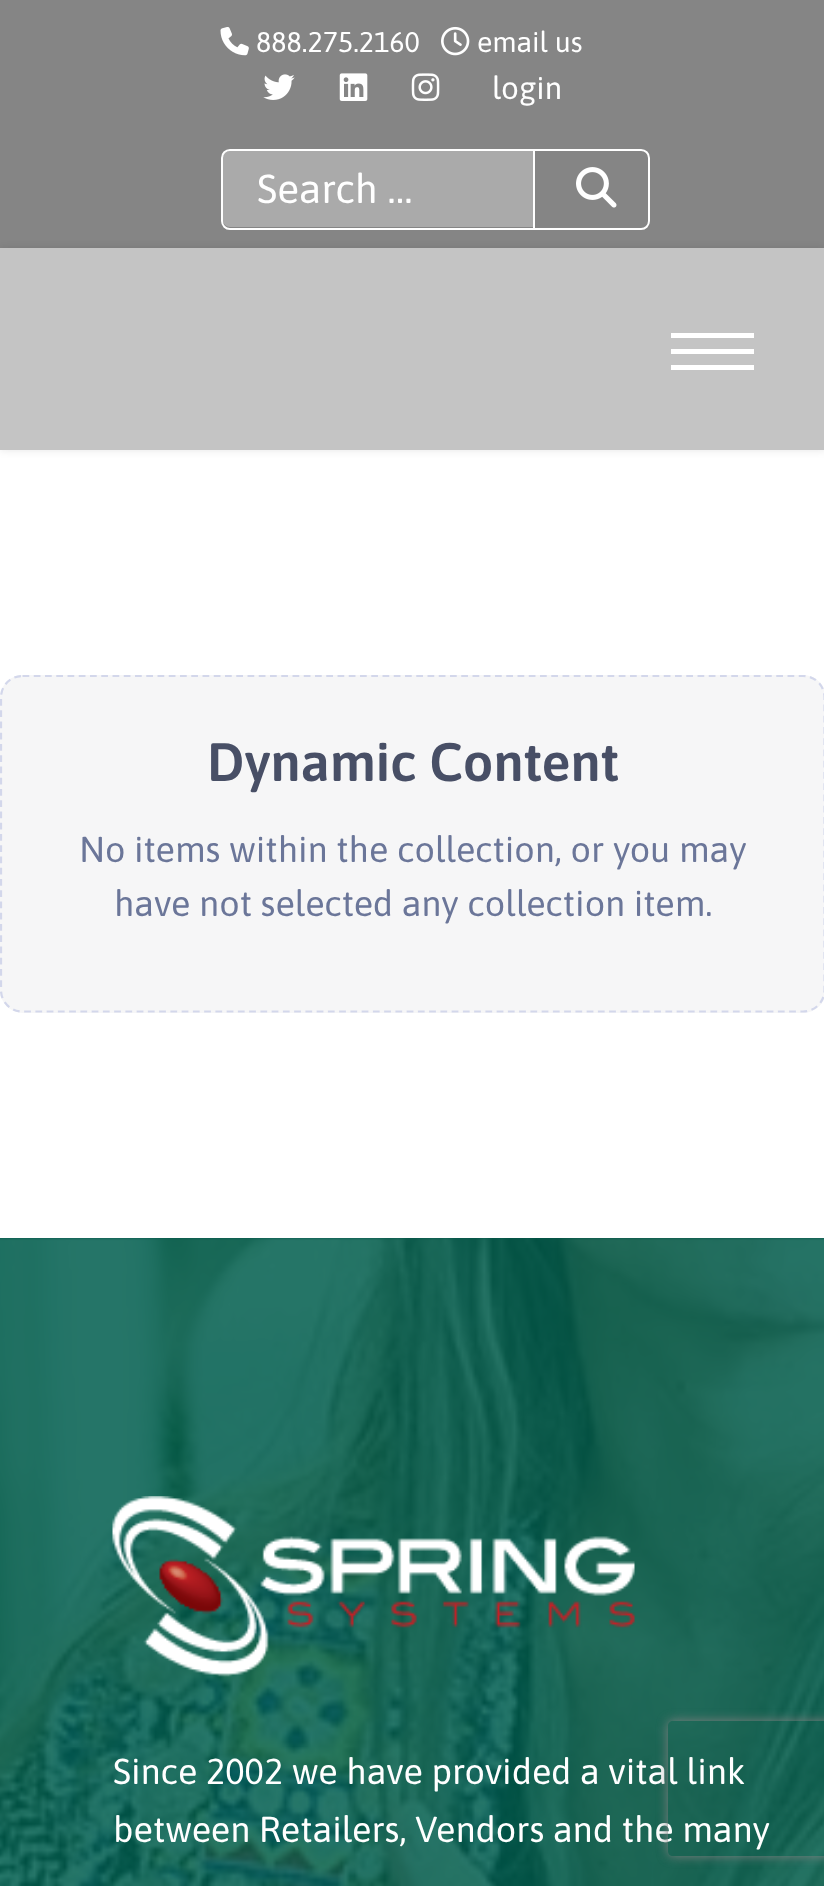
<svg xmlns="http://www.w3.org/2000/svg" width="824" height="1886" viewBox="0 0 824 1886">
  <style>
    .t1 { font: 28.5px Asap; fill: #fff; }
    .t2 { font: 31.5px Asap; fill: #fff; }
    .t3 { font: 40.5px Asap; fill: #fff; }
    .t4 { font: 600 54px Asap; fill: #484f66; }
    .t5 { font: 36px Asap; fill: #6b7699; }
    .t6 { font: 36px Asap; fill: #fff; }
  </style>
  <defs>
    <clipPath id="clip1"><path d="M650 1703H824V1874H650ZM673 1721H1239C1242 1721 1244 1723 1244 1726V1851C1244 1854 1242 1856 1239 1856H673C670 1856 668 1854 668 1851V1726C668 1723 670 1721 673 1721Z" clip-rule="evenodd"/></clipPath>
  </defs>
  <rect width="100%" height="100%" fill="#fff"/>
  <rect x="0" y="0" width="824" height="248" fill="#858585"/>
  <image x="220" y="27" width="29" height="29" href="images/1.png"/>
  <text x="256" y="52" class="t1">888.275.2160</text>
  <image x="441" y="26" width="29" height="30" href="images/2.png"/>
  <text x="477" y="52" class="t1">email us</text>
  <image x="263" y="74" width="32" height="26" href="images/3.png"/>
  <image x="339" y="73" width="29" height="28" href="images/4.png"/>
  <image x="411" y="73" width="29" height="28" href="images/5.png"/>
  <text x="492" y="99" class="t2">login</text>
  <path d="M230 151H533V227H230C226 227 223 224 223 220V158C223 154 226 151 230 151Z" fill="#aaa"/>
  <path d="M230 150H535V229H230C225.5 229 222 225.5 222 221V158C222 153.5 225.5 150 230 150Z" fill="none" stroke="#fff" stroke-width="2"/>
  <text x="257" y="203" class="t3">Search …</text>
  <path d="M534 150H641C645.5 150 649 153.5 649 158V221C649 225.5 645.5 229 641 229H534Z" fill="#858585" stroke="#fff" stroke-width="2"/>
  <image x="576" y="167" width="41" height="41" href="images/6.png"/>
  <rect x="0" y="248" width="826" height="202" fill="#0000001a" filter="blur(4.5px)"/>
  <rect x="0" y="248" width="824" height="202" fill="#c4c4c4"/>
  <rect x="671" y="333" width="83" height="5" fill="#fff"/>
  <rect x="671" y="349" width="83" height="5" fill="#fff"/>
  <rect x="671" y="365" width="83" height="5" fill="#fff"/>
  <rect x="0" y="675" width="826" height="338" rx="23" fill="#f6f6f7"/>
  <path d="M22.5 676H803C815 676 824.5 685.5 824.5 697.5V990C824.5 1002 815 1011.5 803 1011.5H22.5C10.5 1011.5 1 1002 1 990V697.5C1 685.5 10.5 676 22.5 676Z" fill="none" stroke="#d3d7eb" stroke-width="2.2" stroke-dasharray="6.75 4.5"/>
  <text x="207" y="781" class="t4">Dynamic Content</text>
  <text x="79" y="862" class="t5">No items within the collection, or you may</text>
  <text x="114" y="916" class="t5">have not selected any collection item.</text>
  <image x="0" y="1238" width="824" height="648" href="images/7.png"/>
  <image x="112" y="1496" width="523" height="181" href="images/8.png"/>
  <text x="113" y="1784" class="t6">Since 2002 we have provided a vital link</text>
  <text x="113" y="1842" class="t6">between Retailers, Vendors and the many</text>
  <g clip-path="url(#clip1)">
    <rect x="668" y="1721" width="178" height="135" rx="5" fill="#808080" filter="blur(5.5px)"/>
  </g>
</svg>
